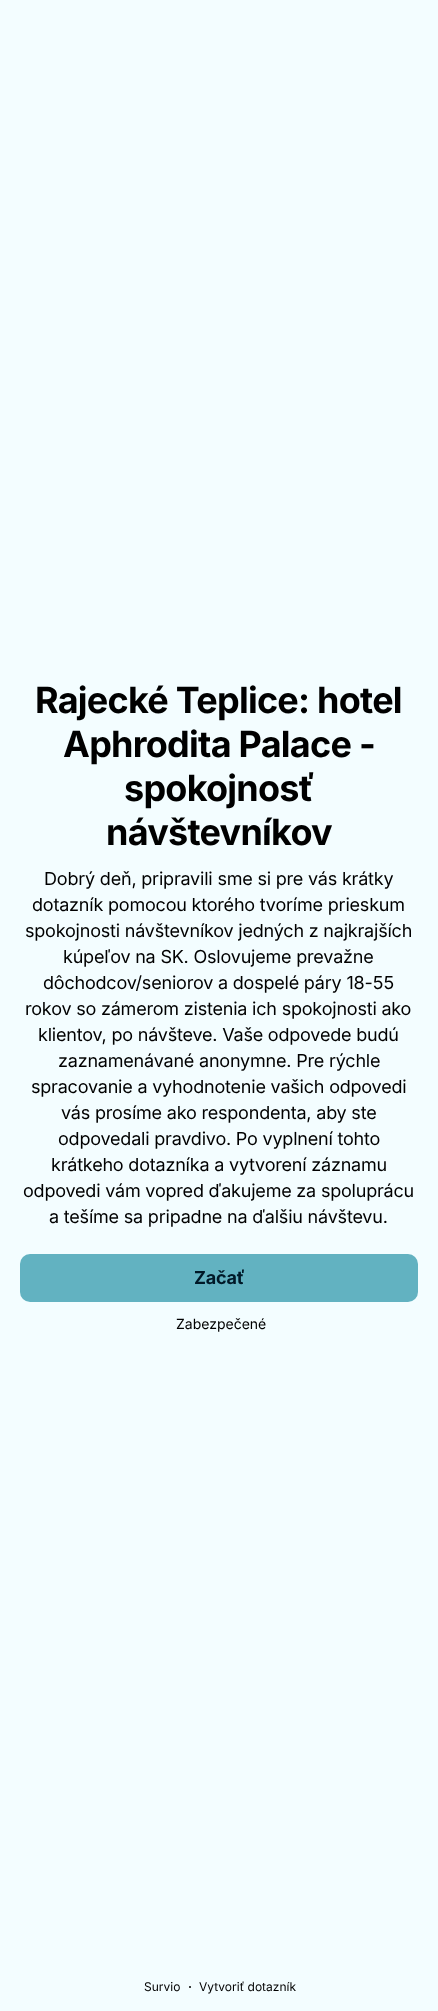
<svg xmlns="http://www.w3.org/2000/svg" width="438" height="2011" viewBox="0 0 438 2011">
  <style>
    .t1 { font: bold 36px Inter; letter-spacing: -0.75px; fill: #000; }
    .t2 { font: 18px Inter; letter-spacing: -0.2px; fill: #000; }
    .t3 { font: bold 18px Inter; letter-spacing: -0.2px; fill: #001928; }
    .t4 { font: 14px Inter; fill: #000; }
    .t5 { font: 12px Inter; fill: #000; }
  </style>
  <rect width="100%" height="100%" fill="#f3fdff"/>
  <text x="35" y="713" class="t1">Rajecké Teplice: hotel</text>
  <text x="63" y="757" class="t1">Aphrodita Palace -</text>
  <text x="124" y="801" class="t1">spokojnosť</text>
  <text x="106" y="845" class="t1">návštevníkov</text>
  <text x="44" y="885" class="t2">Dobrý deň, pripravili sme si pre vás krátky</text>
  <text x="32" y="911" class="t2">dotazník pomocou ktorého tvoríme prieskum</text>
  <text x="25" y="937" class="t2">spokojnosti návštevníkov jedných z najkrajších</text>
  <text x="63" y="963" class="t2">kúpeľov na SK. Oslovujeme prevažne</text>
  <text x="43" y="989" class="t2">dôchodcov/seniorov a dospelé páry 18-55</text>
  <text x="25" y="1015" class="t2">rokov so zámerom zistenia ich spokojnosti ako</text>
  <text x="38" y="1041" class="t2">klientov, po návšteve. Vaše odpovede budú</text>
  <text x="58" y="1067" class="t2">zaznamenávané anonymne. Pre rýchle</text>
  <text x="31" y="1093" class="t2">spracovanie a vyhodnotenie vašich odpovedi</text>
  <text x="61" y="1119" class="t2">vás prosíme ako respondenta, aby ste</text>
  <text x="58" y="1145" class="t2">odpovedali pravdivo. Po vyplnení tohto</text>
  <text x="51" y="1171" class="t2">krátkeho dotazníka a vytvorení záznamu</text>
  <text x="23" y="1197" class="t2">odpovedi vám vopred ďakujeme za spoluprácu</text>
  <text x="49" y="1223" class="t2">a tešíme sa pripadne na ďalšiu návštevu.</text>
  <rect x="20" y="1254" width="398" height="48" rx="10" fill="#62b2c1"/>
  <text x="194" y="1284" class="t3">Začať</text>
  <text x="176" y="1329" class="t4">Zabezpečené</text>
  <text x="144" y="1991" class="t5">Survio</text>
  <circle cx="190" cy="1987" r="1" fill="#000"/>
  <text x="199" y="1991" class="t5">Vytvoriť dotazník</text>
</svg>
